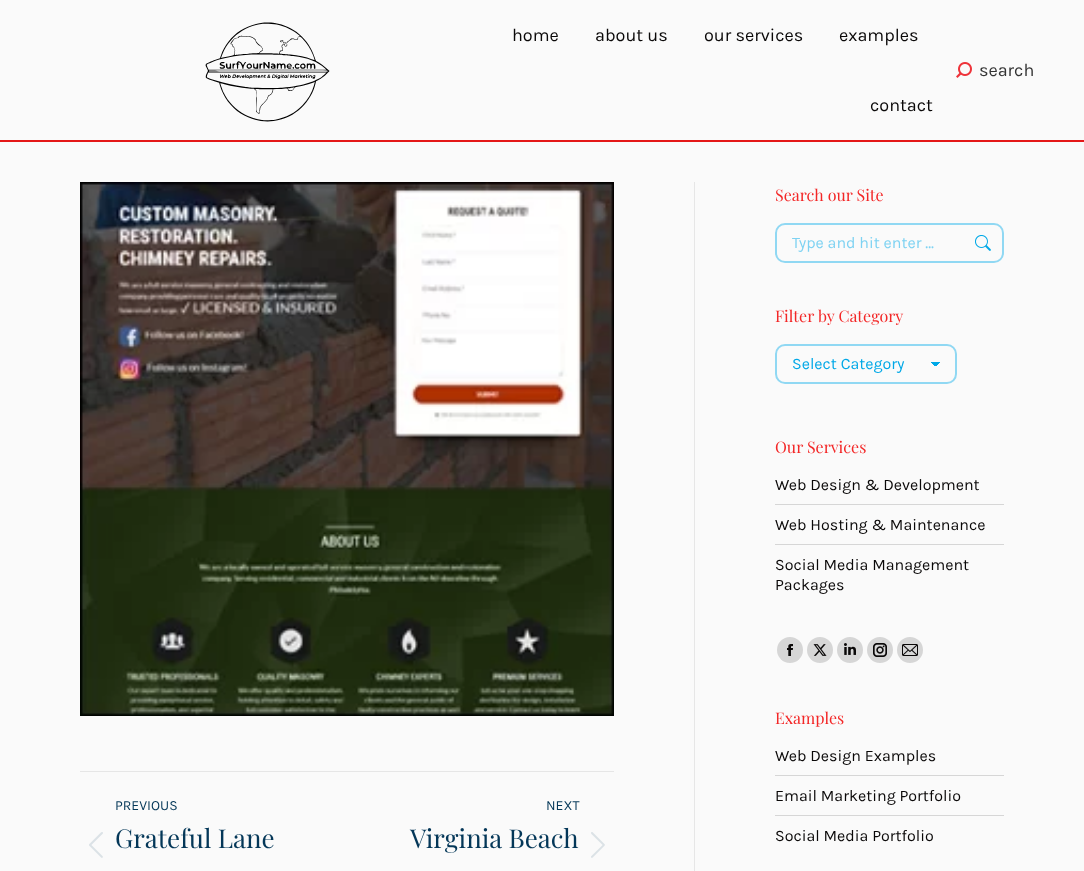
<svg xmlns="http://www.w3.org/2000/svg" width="1084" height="871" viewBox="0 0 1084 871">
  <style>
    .t1 { font: 18px Karla; fill: #0a0808; }
    .t2 { font: 18px Karla; fill: #333; }
    .t3 { font: 14px Karla; fill: #043758; }
    .t4 { font: 26px Playfair Display; fill: #043758; }
    .t5 { font: 16px Playfair Display; fill: #f32727; }
    .t6 { font: 16px Karla; fill: #7ed2f2; }
    .t7 { font: 16px Karla; fill: #00a8e7; }
    .t8 { font: 16px Karla; fill: #0a0808; }
  </style>
  <defs>
    <linearGradient id="g1" gradientUnits="userSpaceOnUse" x1="935" y1="362" x2="940" y2="367"><stop offset="0.5" stop-color="#00a8e7"/><stop offset="0.5" stop-color="#fcfcfc"/></linearGradient>
    <linearGradient id="g2" gradientUnits="userSpaceOnUse" x1="930" y1="367" x2="935" y2="362"><stop offset="0.5" stop-color="#fcfcfc"/><stop offset="0.5" stop-color="#00a8e7"/></linearGradient>
  </defs>
  <rect width="100%" height="100%" fill="#fafafa"/>
  <rect x="0" y="140" width="1084" height="2" fill="#e41818"/>
  <image x="205" y="22" width="125" height="100" href="images/1.png"/>
  <text x="512" y="41" class="t1">home</text>
  <text x="595" y="41" class="t1">about us</text>
  <text x="704" y="41" class="t1">our services</text>
  <text x="839" y="41" class="t1">examples</text>
  <text x="870" y="111" class="t1">contact</text>
  <image x="956" y="62" width="16" height="16" href="images/2.png"/>
  <text x="979" y="76" class="t2">search</text>
  <image x="80" y="182" width="534" height="534" href="images/3.png"/>
  <rect x="80" y="771" width="534" height="1" fill="#e6e6e6"/>
  <text x="115" y="810" class="t3">PREVIOUS</text>
  <image x="89" y="832" width="14" height="26" href="images/4.png"/>
  <text x="115" y="848" class="t4">Grateful Lane</text>
  <text x="546" y="810" class="t3">NEXT</text>
  <text x="410" y="848" class="t4">Virginia Beach</text>
  <image x="591" y="832" width="14" height="26" href="images/5.png"/>
  <rect x="694" y="182" width="1" height="689" fill="#e6e6e6"/>
  <text x="775" y="201" class="t5">Search our Site</text>
  <rect x="776" y="224" width="227" height="38" rx="9" fill="none" stroke="#90d8f3" stroke-width="2"/>
  <text x="792" y="248" class="t6">Type and hit enter …</text>
  <image x="975" y="235" width="16" height="16" href="images/6.png"/>
  <text x="775" y="322" class="t5">Filter by Category</text>
  <rect x="935" y="362" width="5" height="4" fill="url(#g1)"/>
  <rect x="930" y="362" width="5" height="4" fill="url(#g2)"/>
  <rect x="776" y="345" width="180" height="38" rx="9" fill="none" stroke="#90d8f3" stroke-width="2"/>
  <text x="792" y="369" class="t7">Select Category</text>
  <text x="775" y="453" class="t5">Our Services</text>
  <text x="775" y="490" class="t8">Web Design &amp; Development</text>
  <rect x="775" y="504" width="229" height="1" fill="#d6d6d6"/>
  <text x="775" y="530" class="t8">Web Hosting &amp; Maintenance</text>
  <rect x="775" y="544" width="229" height="1" fill="#d6d6d6"/>
  <text x="775" y="570" class="t8">Social Media Management</text>
  <text x="775" y="590" class="t8">Packages</text>
  <circle cx="790" cy="650" r="13" fill="#d6d6d6"/>
  <image x="787" y="644" width="6" height="12" href="images/7.png"/>
  <circle cx="820" cy="650" r="13" fill="#d6d6d6"/>
  <image x="813" y="644" width="14" height="12" href="images/8.png"/>
  <circle cx="850" cy="650" r="13" fill="#d6d6d6"/>
  <image x="844" y="643" width="12" height="12" href="images/9.png"/>
  <circle cx="880" cy="650" r="13" fill="#d6d6d6"/>
  <image x="873" y="643" width="14" height="14" href="images/10.png"/>
  <circle cx="910" cy="650" r="13" fill="#d6d6d6"/>
  <image x="902" y="644" width="16" height="12" href="images/11.png"/>
  <text x="775" y="724" class="t5">Examples</text>
  <text x="775" y="761" class="t8">Web Design Examples</text>
  <rect x="775" y="775" width="229" height="1" fill="#d6d6d6"/>
  <text x="775" y="801" class="t8">Email Marketing Portfolio</text>
  <rect x="775" y="815" width="229" height="1" fill="#d6d6d6"/>
  <text x="775" y="841" class="t8">Social Media Portfolio</text>
</svg>
